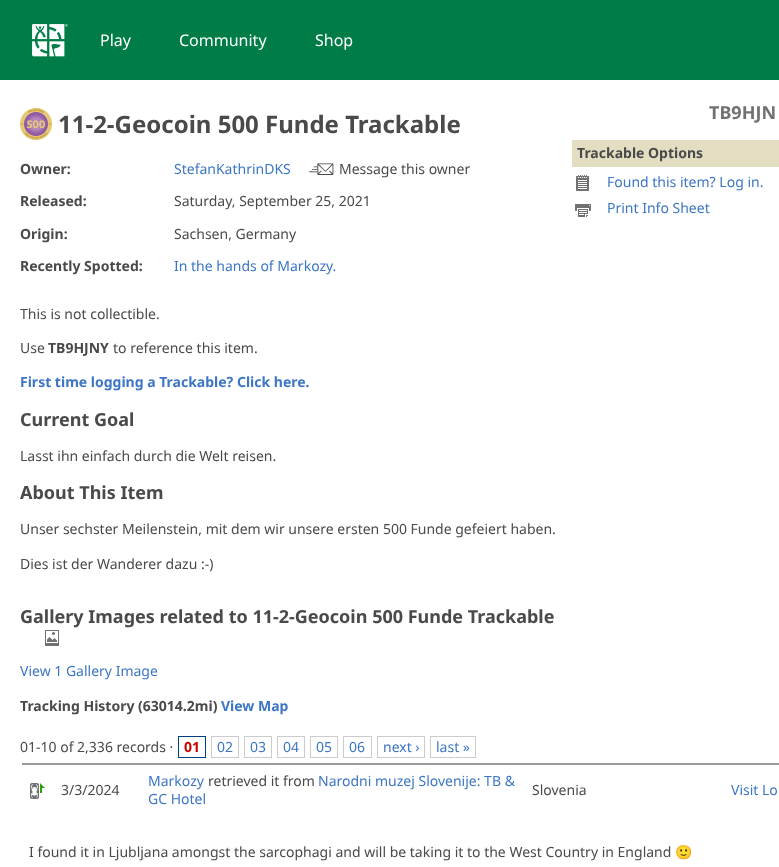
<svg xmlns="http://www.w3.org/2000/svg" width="779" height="867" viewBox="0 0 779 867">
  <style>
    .t1 { font: 16px Noto Sans; fill: #fff; }
    .t2 { font: bold 24px Noto Sans; fill: #4a4a4a; }
    .t3 { font: bold 18px Noto Sans; fill: #717073; }
    .t4 { font: bold 14px Noto Sans; fill: #4a4a4a; }
    .t5 { font: 14px Noto Sans; fill: #3d76c5; }
    .t6 { font: 14px Noto Sans; fill: #4a4a4a; }
    .t7 { font: bold 14px Noto Sans; fill: #3d76c5; }
    .t8 { font: bold 18px Noto Sans; fill: #4a4a4a; }
    .t9 { font: bold 14px Noto Sans; fill: #c00; }
    .t10 { font: 14px Noto Color Emoji; fill: #4a4a4a; }
  </style>
  <rect width="100%" height="100%" fill="#fff"/>
  <rect x="0" y="0" width="779" height="80" fill="#007d46"/>
  <image x="32" y="24" width="36" height="33" href="images/1.png"/>
  <text x="100" y="46" class="t1">Play</text>
  <text x="179" y="46" class="t1">Community</text>
  <text x="315" y="46" class="t1">Shop</text>
  <image x="20" y="108" width="32" height="32" href="images/2.png"/>
  <text x="58" y="133" class="t2">11-2-Geocoin 500 Funde Trackable</text>
  <text x="709" y="119" class="t3">TB9HJN</text>
  <text x="20" y="174" class="t4">Owner:</text>
  <text x="174" y="174" class="t5">StefanKathrinDKS</text>
  <image x="309" y="163" width="25" height="12" href="images/3.png"/>
  <text x="339" y="174" class="t6">Message this owner</text>
  <text x="20" y="206" class="t4">Released:</text>
  <text x="174" y="206" class="t6">Saturday, September 25, 2021</text>
  <text x="20" y="239" class="t4">Origin:</text>
  <text x="174" y="239" class="t6">Sachsen, Germany</text>
  <text x="20" y="271" class="t4">Recently Spotted:</text>
  <text x="174" y="271" class="t5">In the hands of Markozy.</text>
  <rect x="572" y="140" width="207" height="27" fill="#e3ddc2"/>
  <text x="577" y="158" class="t4">Trackable Options</text>
  <image x="576" y="175" width="13" height="16" href="images/4.png"/>
  <text x="607" y="187" class="t5">Found this item? Log in.</text>
  <image x="575" y="204" width="16" height="13" href="images/5.png"/>
  <text x="607" y="213" class="t5">Print Info Sheet</text>
  <text x="20" y="319" class="t6">This is not collectible.</text>
  <text x="20" y="353" class="t6">Use</text>
  <text x="48" y="353" class="t4">TB9HJNY</text>
  <text x="113" y="353" class="t6">to reference this item.</text>
  <text x="20" y="387" class="t7">First time logging a Trackable? Click here.</text>
  <text x="20" y="426" class="t8">Current Goal</text>
  <text x="20" y="461" class="t6">Lasst ihn einfach durch die Welt reisen.</text>
  <text x="20" y="499" class="t8">About This Item</text>
  <text x="20" y="534" class="t6">Unser sechster Meilenstein, mit dem wir unsere ersten 500 Funde gefeiert haben.</text>
  <text x="20" y="569" class="t6">Dies ist der Wanderer dazu :-)</text>
  <text x="20" y="623" class="t8">Gallery Images related to 11-2-Geocoin 500 Funde Trackable</text>
  <image x="45" y="630" width="14" height="16" href="images/6.png"/>
  <text x="20" y="676" class="t5">View 1 Gallery Image</text>
  <text x="20" y="711" class="t4">Tracking History (63014.2mi)</text>
  <text x="221" y="711" class="t7">View Map</text>
  <text x="20" y="752" class="t6">01-10 of 2,336 records ·</text>
  <rect x="178.5" y="736.5" width="27" height="21" fill="none" stroke="#003f7e"/>
  <text x="184" y="752" class="t9">01</text>
  <rect x="211.5" y="736.5" width="27" height="21" fill="none" stroke="#ccc"/>
  <text x="217" y="752" class="t5">02</text>
  <rect x="244.5" y="736.5" width="27" height="21" fill="none" stroke="#ccc"/>
  <text x="250" y="752" class="t5">03</text>
  <rect x="277.5" y="736.5" width="27" height="21" fill="none" stroke="#ccc"/>
  <text x="283" y="752" class="t5">04</text>
  <rect x="310.5" y="736.5" width="27" height="21" fill="none" stroke="#ccc"/>
  <text x="316" y="752" class="t5">05</text>
  <rect x="343.5" y="736.5" width="28" height="21" fill="none" stroke="#ccc"/>
  <text x="349" y="752" class="t5">06</text>
  <rect x="377.5" y="736.5" width="47" height="21" fill="none" stroke="#ccc"/>
  <text x="383" y="752" class="t5">next ›</text>
  <rect x="430.5" y="736.5" width="45" height="21" fill="none" stroke="#ccc"/>
  <text x="436" y="752" class="t5">last »</text>
  <rect x="20" y="763" width="759" height="2" fill="#9b9b9b"/>
  <rect x="20" y="763" width="2" height="2" fill="#fff"/>
  <image x="30" y="783" width="15" height="16" href="images/7.png"/>
  <text x="61" y="795" class="t6">3/3/2024</text>
  <text x="148" y="786" class="t5">Markozy</text>
  <text x="208" y="786" class="t6">retrieved it from</text>
  <text x="318" y="786" class="t5">Narodni muzej Slovenije: TB &amp;</text>
  <text x="148" y="804" class="t5">GC Hotel</text>
  <text x="532" y="795" class="t6">Slovenia</text>
  <text x="731" y="795" class="t5">Visit Lo</text>
  <text x="29" y="857" class="t6">I found it in Ljubljana amongst the sarcophagi and will be taking it to the West Country in England</text>
  <text x="675" y="857" class="t10">🙂</text>
</svg>
